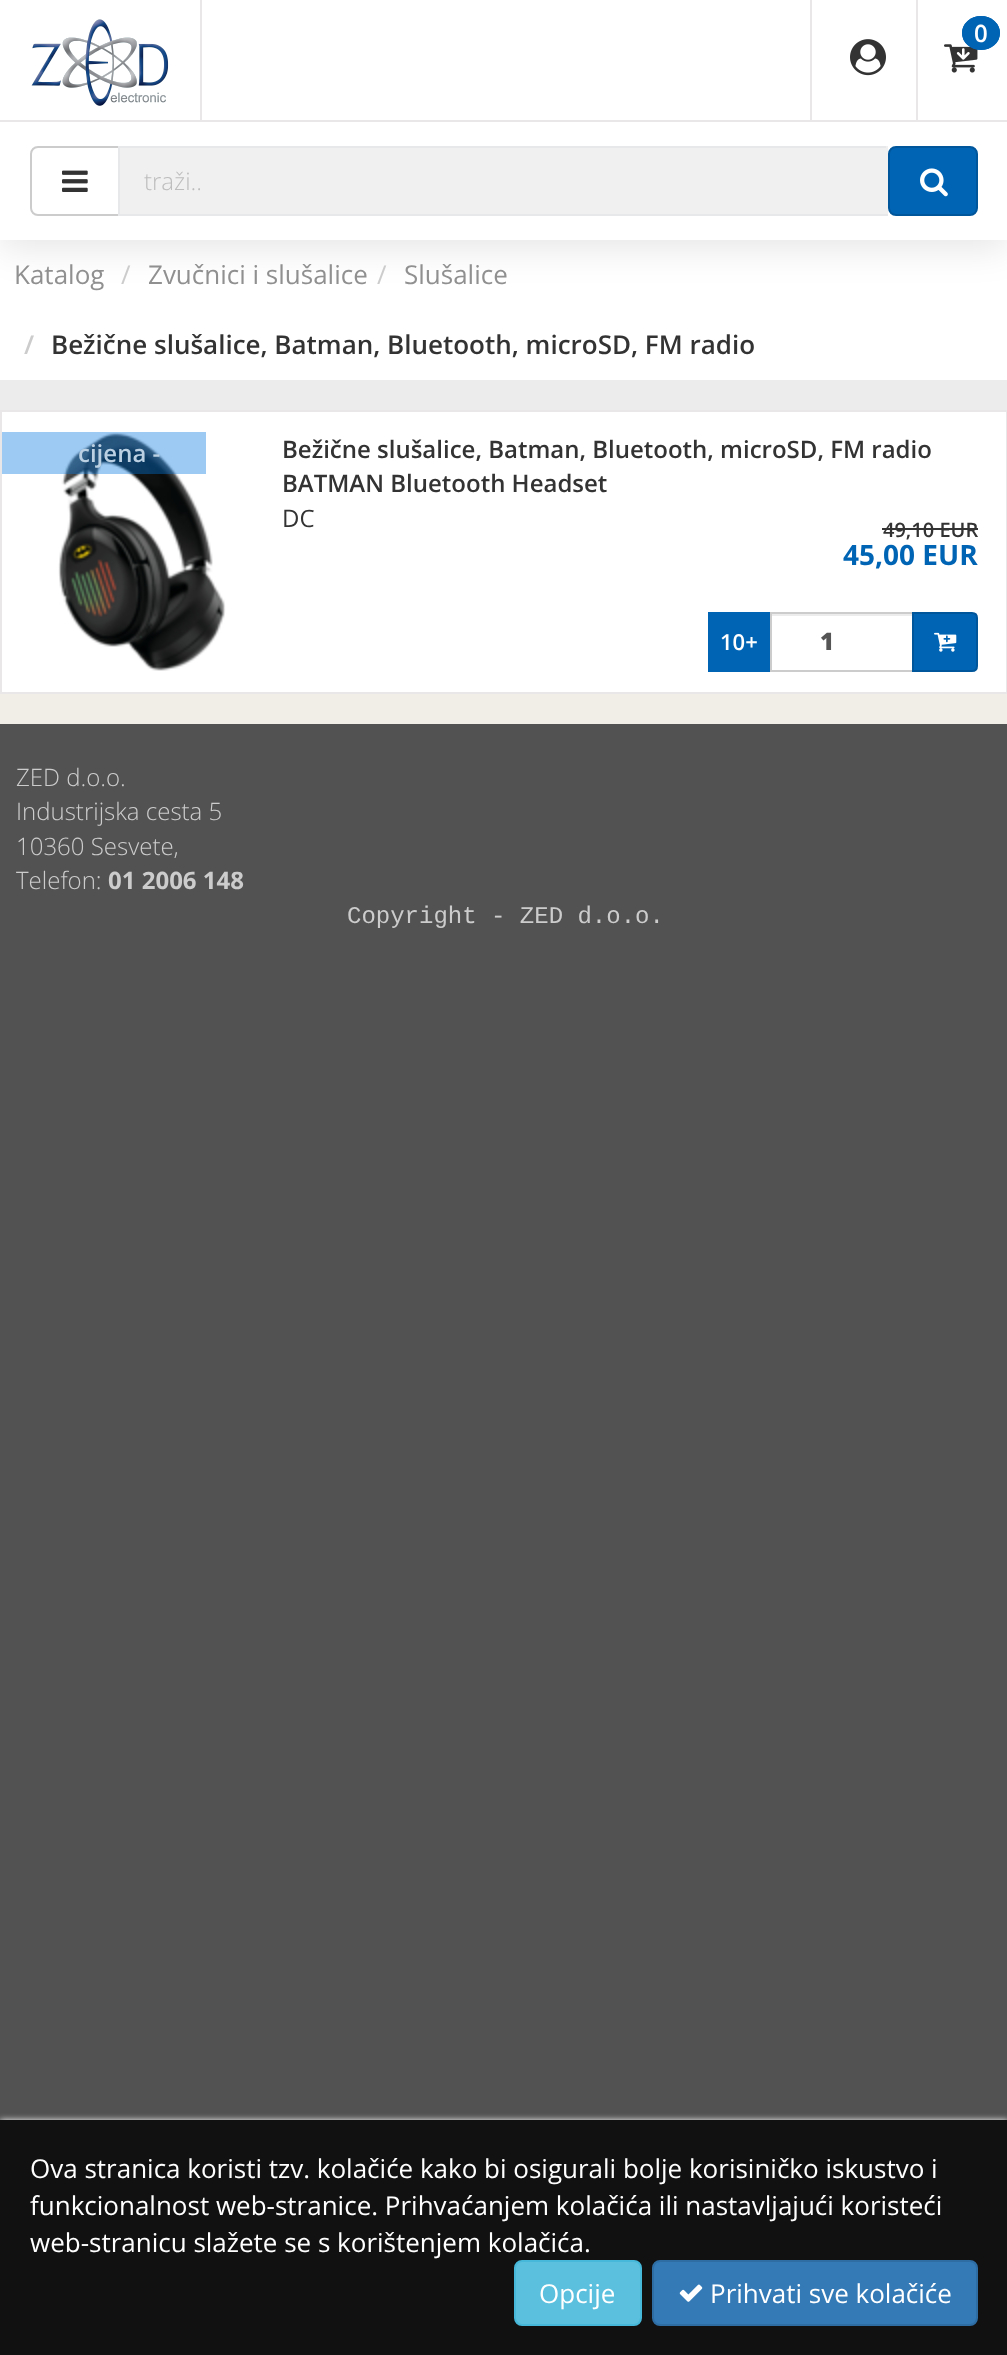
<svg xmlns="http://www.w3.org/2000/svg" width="1007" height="2355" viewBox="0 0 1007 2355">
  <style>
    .t1 { font: 600 24px Open Sans; fill: #fff; }
    .t2 { font: 300 24px Open Sans; fill: #bdbdbd; }
    .t3 { font: 26px Open Sans; fill: #909090; }
    .t4 { font: 26px Open Sans; fill: #ccc; }
    .t5 { font: 600 26px Open Sans; fill: #ccc; }
    .t6 { font: 600 26px Open Sans; fill: #333; }
    .t7 { font: 600 24px Open Sans; fill: #bbd0e2; }
    .t8 { font: 600 24px Open Sans; fill: #333; }
    .t9 { font: 24px Open Sans; fill: #333; }
    .t10 { font: 600 20px Open Sans; fill: #333; }
    .t11 { font: bold 28px Open Sans; fill: #0064b4; }
    .t12 { font: 600 22px Open Sans; fill: #fff; }
    .t13 { font: 800 24px Open Sans; fill: #555; }
    .t14 { font: 300 24px Open Sans; fill: #ccc; }
    .t15 { font: bold 24px Open Sans; fill: #ccc; }
    .t16 { font: 24px Liberation Mono; fill: #ccc; }
    .t17 { font: 26px Open Sans; fill: #fff; }
  </style>
  <rect width="100%" height="100%" fill="#525252"/>
  <rect x="0" y="694" width="1007" height="30" fill="#f0eee7"/>
  <rect x="0" y="240" width="1007" height="140" fill="#fff"/>
  <rect x="0" y="8" width="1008" height="240" fill="#0000001a" filter="blur(18px)"/>
  <rect x="0" y="0" width="1007" height="240" fill="#fff"/>
  <rect x="200" y="0" width="2" height="120" fill="#e9e7e7"/>
  <image x="31" y="19" width="138" height="87" href="images/1.png"/>
  <rect x="810" y="0" width="2" height="120" fill="#e9e7e7"/>
  <image x="850" y="39" width="36" height="37" href="images/2.png"/>
  <rect x="916" y="0" width="2" height="120" fill="#e9e7e7"/>
  <image x="944" y="44" width="34" height="29" href="images/3.png"/>
  <ellipse cx="981" cy="33" rx="19" ry="17" fill="#0064b4"/>
  <path d="M981 17C991 17 999 24 999 33C999 42 991 49 981 49C971 49 963 42 963 33C963 24 971 17 981 17Z" fill="none" stroke="#0064b4" stroke-width="2"/>
  <text x="974" y="42" class="t1">0</text>
  <rect x="0" y="120" width="1007" height="2" fill="#e9e7e7"/>
  <path d="M38 147H119V215H38C34 215 31 212 31 208V154C31 150 34 147 38 147Z" fill="none" stroke="#ccc" stroke-width="2"/>
  <image x="62" y="170" width="26" height="22" href="images/4.png"/>
  <rect x="120" y="148" width="766" height="66" fill="#f0f0f0"/>
  <rect x="118" y="146" width="770" height="2" fill="#e6e8e9"/>
  <rect x="886" y="146" width="2" height="70" fill="#f0f0f0"/>
  <rect x="118" y="214" width="770" height="2" fill="#e6e8e9"/>
  <rect x="118" y="146" width="2" height="70" fill="#e6e8e9"/>
  <text x="144" y="190" class="t2">traži..</text>
  <rect x="889" y="147" width="88" height="68" rx="7" fill="#0064b4" stroke="#00569b" stroke-width="2"/>
  <image x="920" y="168" width="28" height="29" href="images/5.png"/>
  <rect x="0" y="380" width="1007" height="30" fill="#ececec"/>
  <text x="14" y="284" class="t3">Katalog</text>
  <text x="121" y="284" class="t4">/</text>
  <text x="148" y="284" class="t3">Zvučnici i slušalice</text>
  <text x="377" y="284" class="t4">/</text>
  <text x="404" y="284" class="t3">Slušalice</text>
  <text x="24" y="354" class="t5">/</text>
  <text x="51" y="354" class="t6">Bežične slušalice, Batman, Bluetooth, microSD, FM radio</text>
  <rect x="1" y="411" width="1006" height="282" fill="#fff" stroke="#e9e7e7" stroke-width="2"/>
  <image x="58" y="432" width="168" height="239" href="images/6.png"/>
  <rect x="2" y="432" width="204" height="42" fill="#0076de63"/>
  <text x="78" y="462" class="t7">cijena -</text>
  <text x="282" y="458" class="t8">Bežične slušalice, Batman, Bluetooth, microSD, FM radio</text>
  <text x="282" y="492" class="t8">BATMAN Bluetooth Headset</text>
  <text x="282" y="527" class="t9">DC</text>
  <text x="883" y="537" class="t10">49,10 EUR</text>
  <rect x="882" y="528" width="96" height="2" fill="#333"/>
  <text x="843" y="565" class="t11">45,00 EUR</text>
  <rect x="708" y="612" width="62" height="60" fill="#0064b4"/>
  <text x="720" y="650" class="t12">10+</text>
  <rect x="772" y="614" width="140" height="2" fill="#ececec"/>
  <rect x="771" y="613" width="142" height="58" fill="none" stroke="#ccc" stroke-width="2"/>
  <text x="820" y="650" class="t13">1</text>
  <path d="M913 613H972C975 613 977 615 977 618V666C977 669 975 671 972 671H913Z" fill="#0064b4" stroke="#00569b" stroke-width="2"/>
  <image x="934" y="632" width="23" height="20" href="images/7.png"/>
  <text x="16" y="786" class="t14">ZED d.o.o.</text>
  <text x="16" y="820" class="t14">Industrijska cesta 5</text>
  <text x="16" y="855" class="t14">10360 Sesvete,</text>
  <text x="16" y="889" class="t14">Telefon:</text>
  <text x="108" y="889" class="t15">01 2006 148</text>
  <text x="347" y="923" class="t16">Copyright - ZED d.o.o.</text>
  <rect x="0" y="2120" width="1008" height="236" fill="#fff" filter="blur(3px)"/>
  <rect x="0" y="2120" width="1007" height="235" fill="#111"/>
  <text x="30" y="2178" class="t17">Ova stranica koristi tzv. kolačiće kako bi osigurali bolje korisiničko iskustvo i</text>
  <text x="30" y="2215" class="t17">funkcionalnost web-stranice. Prihvaćanjem kolačića ili nastavljajući koristeći</text>
  <text x="30" y="2252" class="t17">web-stranicu slažete se s korištenjem kolačića.</text>
  <rect x="515" y="2261" width="126" height="64" rx="7" fill="#5bc0de" stroke="#46b8da" stroke-width="2"/>
  <text x="539" y="2303" class="t17">Opcije</text>
  <rect x="653" y="2261" width="324" height="64" rx="7" fill="#337ab7" stroke="#2e6da4" stroke-width="2"/>
  <image x="679" y="2284" width="24" height="18" href="images/8.png"/>
  <text x="710" y="2303" class="t17">Prihvati sve kolačiće</text>
</svg>
